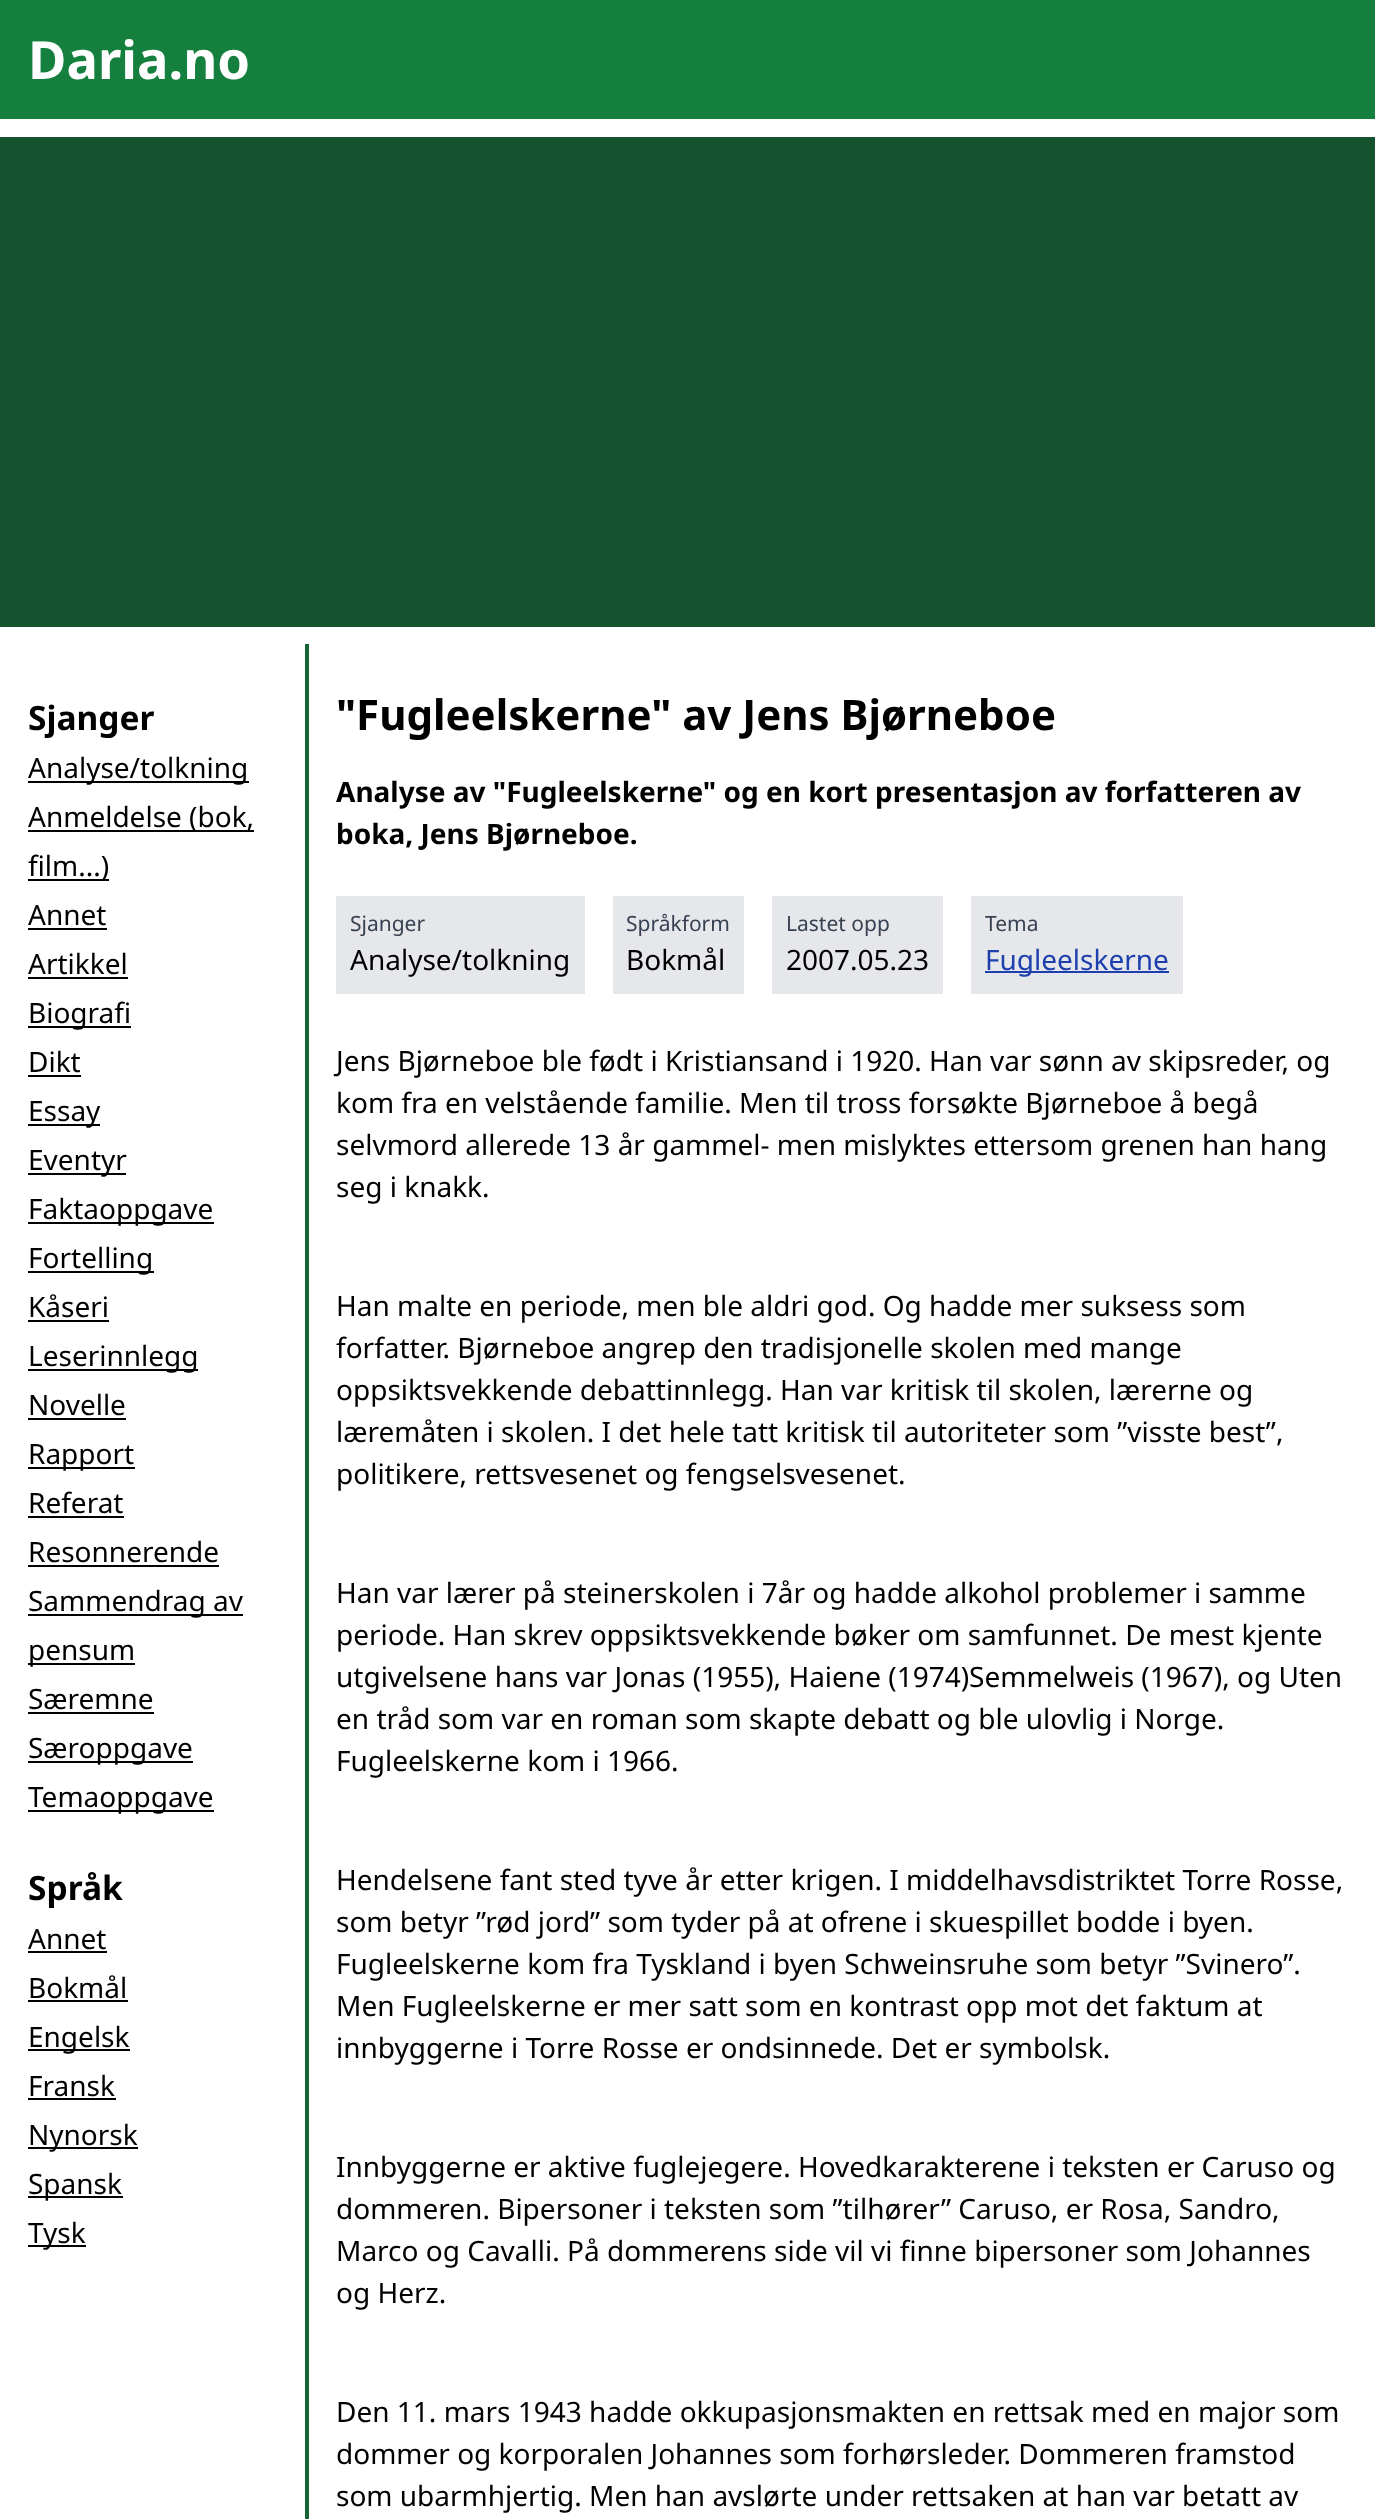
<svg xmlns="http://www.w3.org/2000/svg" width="1375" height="2519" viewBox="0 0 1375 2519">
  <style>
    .t1 { font: bold 52.5px Noto Sans; fill: #fff; }
    .t2 { font: bold 33.5px Noto Sans; fill: #000; }
    .t3 { font: 28px Noto Sans; fill: #000; }
    .t4 { font: bold 42px Noto Sans; fill: #000; }
    .t5 { font: bold 28px Noto Sans; fill: #000; }
    .t6 { font: 21px Noto Sans; fill: #374151; }
    .t7 { font: 28px Noto Sans; fill: #1e40af; }
  </style>
  <rect width="100%" height="100%" fill="#fff"/>
  <rect x="0" y="0" width="1375" height="119" fill="#15803d"/>
  <text x="28" y="79" class="t1">Daria.no</text>
  <rect x="0" y="137" width="1375" height="490" fill="#14532d"/>
  <rect x="305" y="644" width="4" height="1875" fill="#166534"/>
  <text x="28" y="730" class="t2">Sjanger</text>
  <rect x="28" y="781" width="221" height="2" fill="#000"/>
  <text x="28" y="778" class="t3">Analyse/tolkning</text>
  <rect x="28" y="830" width="226" height="2" fill="#000"/>
  <text x="28" y="827" class="t3">Anmeldelse (bok,</text>
  <rect x="28" y="879" width="81" height="2" fill="#000"/>
  <text x="28" y="876" class="t3">film...)</text>
  <text x="28" y="925" class="t3">Annet</text>
  <rect x="28" y="928" width="79" height="2" fill="#000"/>
  <text x="28" y="974" class="t3">Artikkel</text>
  <rect x="28" y="977" width="100" height="2" fill="#000"/>
  <rect x="28" y="1026" width="103" height="2" fill="#000"/>
  <text x="28" y="1023" class="t3">Biografi</text>
  <text x="28" y="1072" class="t3">Dikt</text>
  <rect x="28" y="1075" width="53" height="2" fill="#000"/>
  <rect x="28" y="1124" width="72" height="2" fill="#000"/>
  <text x="28" y="1121" class="t3">Essay</text>
  <rect x="28" y="1173" width="98" height="2" fill="#000"/>
  <text x="28" y="1170" class="t3">Eventyr</text>
  <rect x="28" y="1222" width="186" height="2" fill="#000"/>
  <text x="28" y="1219" class="t3">Faktaoppgave</text>
  <rect x="28" y="1271" width="126" height="2" fill="#000"/>
  <text x="28" y="1268" class="t3">Fortelling</text>
  <text x="28" y="1317" class="t3">Kåseri</text>
  <rect x="28" y="1320" width="81" height="2" fill="#000"/>
  <rect x="28" y="1369" width="170" height="2" fill="#000"/>
  <text x="28" y="1366" class="t3">Leserinnlegg</text>
  <text x="28" y="1415" class="t3">Novelle</text>
  <rect x="28" y="1418" width="98" height="2" fill="#000"/>
  <rect x="28" y="1467" width="107" height="2" fill="#000"/>
  <text x="28" y="1464" class="t3">Rapport</text>
  <text x="28" y="1513" class="t3">Referat</text>
  <rect x="28" y="1516" width="96" height="2" fill="#000"/>
  <text x="28" y="1562" class="t3">Resonnerende</text>
  <rect x="28" y="1565" width="191" height="2" fill="#000"/>
  <rect x="28" y="1614" width="215" height="2" fill="#000"/>
  <text x="28" y="1611" class="t3">Sammendrag av</text>
  <rect x="28" y="1663" width="107" height="2" fill="#000"/>
  <text x="28" y="1660" class="t3">pensum</text>
  <text x="28" y="1709" class="t3">Særemne</text>
  <rect x="28" y="1712" width="126" height="2" fill="#000"/>
  <rect x="28" y="1761" width="165" height="2" fill="#000"/>
  <text x="28" y="1758" class="t3">Særoppgave</text>
  <rect x="28" y="1810" width="186" height="2" fill="#000"/>
  <text x="28" y="1807" class="t3">Temaoppgave</text>
  <text x="28" y="1900" class="t2">Språk</text>
  <text x="28" y="1949" class="t3">Annet</text>
  <rect x="28" y="1951" width="79" height="2" fill="#000"/>
  <text x="28" y="1998" class="t3">Bokmål</text>
  <rect x="28" y="2000" width="100" height="2" fill="#000"/>
  <rect x="28" y="2049" width="102" height="2" fill="#000"/>
  <text x="28" y="2047" class="t3">Engelsk</text>
  <text x="28" y="2096" class="t3">Fransk</text>
  <rect x="28" y="2098" width="88" height="2" fill="#000"/>
  <rect x="28" y="2147" width="110" height="2" fill="#000"/>
  <text x="28" y="2145" class="t3">Nynorsk</text>
  <rect x="28" y="2196" width="95" height="2" fill="#000"/>
  <text x="28" y="2194" class="t3">Spansk</text>
  <rect x="28" y="2245" width="58" height="2" fill="#000"/>
  <text x="28" y="2243" class="t3">Tysk</text>
  <text x="336" y="730" class="t4">"Fugleelskerne" av Jens Bjørneboe</text>
  <text x="336" y="802" class="t5">Analyse av "Fugleelskerne" og en kort presentasjon av forfatteren av</text>
  <text x="336" y="844" class="t5">boka, Jens Bjørneboe.</text>
  <rect x="336" y="896" width="249" height="98" fill="#e5e7eb"/>
  <text x="350" y="931" class="t6">Sjanger</text>
  <text x="350" y="970" class="t3">Analyse/tolkning</text>
  <rect x="613" y="896" width="131" height="98" fill="#e5e7eb"/>
  <text x="626" y="931" class="t6">Språkform</text>
  <text x="626" y="970" class="t3">Bokmål</text>
  <rect x="772" y="896" width="171" height="98" fill="#e5e7eb"/>
  <text x="786" y="931" class="t6">Lastet opp</text>
  <text x="786" y="970" class="t3">2007.05.23</text>
  <rect x="971" y="896" width="212" height="98" fill="#e5e7eb"/>
  <text x="985" y="931" class="t6">Tema</text>
  <rect x="985" y="971" width="184" height="2" fill="#1e40af"/>
  <text x="985" y="970" class="t7">Fugleelskerne</text>
  <text x="336" y="1071" class="t3">Jens Bjørneboe ble født i Kristiansand i 1920. Han var sønn av skipsreder, og</text>
  <text x="336" y="1113" class="t3">kom fra en velstående familie. Men til tross forsøkte Bjørneboe å begå</text>
  <text x="336" y="1155" class="t3">selvmord allerede 13 år gammel- men mislyktes ettersom grenen han hang</text>
  <text x="336" y="1197" class="t3">seg i knakk.</text>
  <text x="336" y="1316" class="t3">Han malte en periode, men ble aldri god. Og hadde mer suksess som</text>
  <text x="336" y="1358" class="t3">forfatter. Bjørneboe angrep den tradisjonelle skolen med mange</text>
  <text x="336" y="1400" class="t3">oppsiktsvekkende debattinnlegg. Han var kritisk til skolen, lærerne og</text>
  <text x="336" y="1442" class="t3">læremåten i skolen. I det hele tatt kritisk til autoriteter som ”visste best”,</text>
  <text x="336" y="1484" class="t3">politikere, rettsvesenet og fengselsvesenet.</text>
  <text x="336" y="1603" class="t3">Han var lærer på steinerskolen i 7år og hadde alkohol problemer i samme</text>
  <text x="336" y="1645" class="t3">periode. Han skrev oppsiktsvekkende bøker om samfunnet. De mest kjente</text>
  <text x="336" y="1687" class="t3">utgivelsene hans var Jonas (1955), Haiene (1974)Semmelweis (1967), og Uten</text>
  <text x="336" y="1729" class="t3">en tråd som var en roman som skapte debatt og ble ulovlig i Norge.</text>
  <text x="336" y="1771" class="t3">Fugleelskerne kom i 1966.</text>
  <text x="336" y="1890" class="t3">Hendelsene fant sted tyve år etter krigen. I middelhavsdistriktet Torre Rosse,</text>
  <text x="336" y="1932" class="t3">som betyr ”rød jord” som tyder på at ofrene i skuespillet bodde i byen.</text>
  <text x="336" y="1974" class="t3">Fugleelskerne kom fra Tyskland i byen Schweinsruhe som betyr ”Svinero”.</text>
  <text x="336" y="2016" class="t3">Men Fugleelskerne er mer satt som en kontrast opp mot det faktum at</text>
  <text x="336" y="2058" class="t3">innbyggerne i Torre Rosse er ondsinnede. Det er symbolsk.</text>
  <text x="336" y="2177" class="t3">Innbyggerne er aktive fuglejegere. Hovedkarakterene i teksten er Caruso og</text>
  <text x="336" y="2219" class="t3">dommeren. Bipersoner i teksten som ”tilhører” Caruso, er Rosa, Sandro,</text>
  <text x="336" y="2261" class="t3">Marco og Cavalli. På dommerens side vil vi finne bipersoner som Johannes</text>
  <text x="336" y="2303" class="t3">og Herz.</text>
  <text x="336" y="2422" class="t3">Den 11. mars 1943 hadde okkupasjonsmakten en rettsak med en major som</text>
  <text x="336" y="2464" class="t3">dommer og korporalen Johannes som forhørsleder. Dommeren framstod</text>
  <text x="336" y="2506" class="t3">som ubarmhjertig. Men han avslørte under rettsaken at han var betatt av</text>
</svg>
